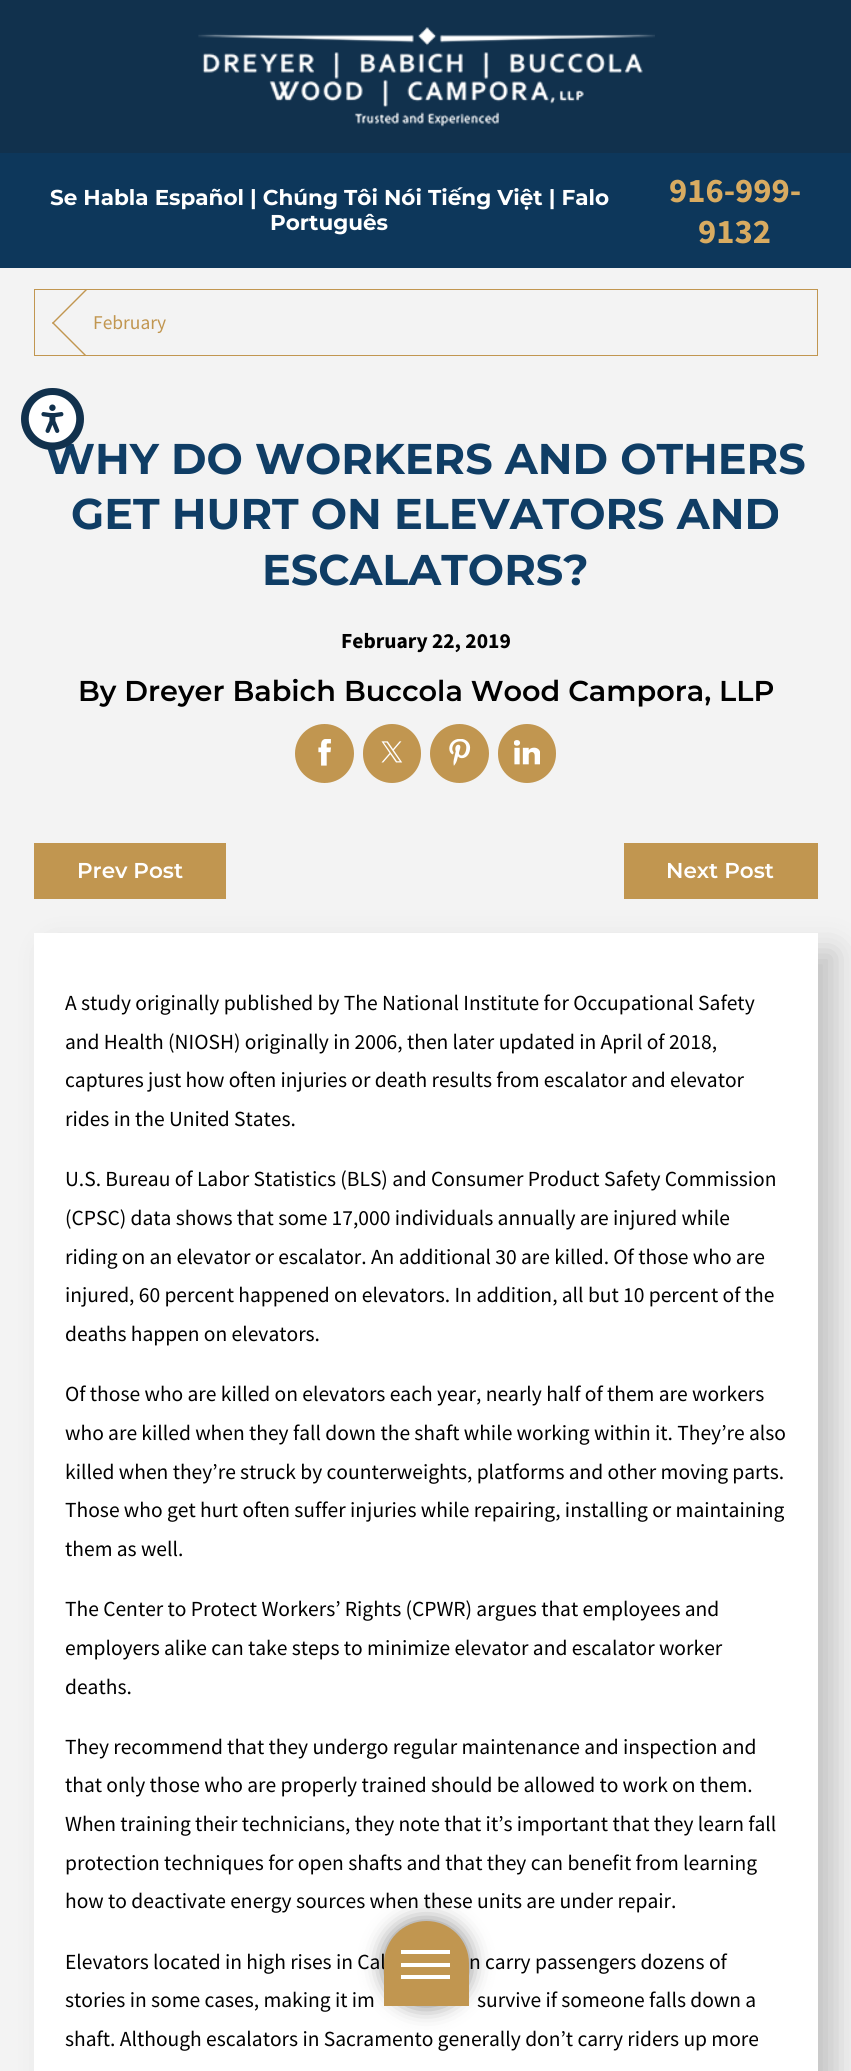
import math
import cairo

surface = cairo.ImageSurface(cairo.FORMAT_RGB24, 851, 2071)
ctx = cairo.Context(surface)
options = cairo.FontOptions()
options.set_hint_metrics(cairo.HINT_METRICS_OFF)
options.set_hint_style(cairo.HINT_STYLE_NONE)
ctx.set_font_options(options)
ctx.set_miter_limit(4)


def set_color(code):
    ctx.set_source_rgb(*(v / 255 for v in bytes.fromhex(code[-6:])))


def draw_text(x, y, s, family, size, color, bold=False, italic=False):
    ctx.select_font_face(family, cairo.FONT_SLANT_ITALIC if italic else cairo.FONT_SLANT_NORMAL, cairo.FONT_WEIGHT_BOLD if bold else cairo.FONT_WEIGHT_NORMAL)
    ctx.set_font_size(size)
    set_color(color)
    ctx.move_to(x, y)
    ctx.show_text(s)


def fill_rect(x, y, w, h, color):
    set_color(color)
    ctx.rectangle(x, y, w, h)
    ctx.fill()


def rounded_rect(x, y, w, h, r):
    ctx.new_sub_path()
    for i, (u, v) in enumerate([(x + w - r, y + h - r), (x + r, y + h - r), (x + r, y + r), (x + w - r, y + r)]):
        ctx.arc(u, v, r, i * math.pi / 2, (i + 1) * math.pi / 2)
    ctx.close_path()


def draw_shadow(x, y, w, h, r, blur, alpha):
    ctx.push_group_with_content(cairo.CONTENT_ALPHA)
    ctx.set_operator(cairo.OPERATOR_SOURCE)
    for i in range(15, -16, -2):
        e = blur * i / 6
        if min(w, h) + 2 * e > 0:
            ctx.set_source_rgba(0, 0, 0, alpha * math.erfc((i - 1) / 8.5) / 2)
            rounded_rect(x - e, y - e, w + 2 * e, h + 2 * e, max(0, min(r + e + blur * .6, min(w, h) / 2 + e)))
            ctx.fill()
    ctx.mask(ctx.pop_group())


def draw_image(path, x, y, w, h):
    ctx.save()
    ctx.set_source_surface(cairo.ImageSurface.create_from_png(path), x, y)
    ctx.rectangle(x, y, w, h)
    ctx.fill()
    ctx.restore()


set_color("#f3f3f3")
ctx.paint()
fill_rect(0, 0, 851, 153, "#11314d")
draw_image("assets/img1.png", 198, 27, 457, 100)
fill_rect(0, 153, 851, 115, "#0d375b")
draw_text(50, 205, "Se Habla Español | Chúng Tôi Nói Tiếng Việt | Falo", "Montserrat", 21.5, "#ffffff", bold=True)
draw_text(270, 230, "Português", "Montserrat", 21.5, "#ffffff", bold=True)
draw_text(669, 202, "916-999-", "Source Sans Pro", 34.5, "#d8ab61", bold=True)
draw_text(698, 243, "9132", "Source Sans Pro", 34.5, "#d8ab61", bold=True)
set_color("#000000")
draw_shadow(53, 951, 783, 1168, 0, 16, 0.2)
fill_rect(34, 933, 784, 1138, "#ffffff")
set_color("#000000")
draw_shadow(384, 1921, 85, 85, 42.5, 11, 0.5)
draw_text(65, 1969, "Elevators located in high rises in Cal", "Source Sans Pro", 21.5, "#000000")
set_color("#c19650")
ctx.new_path()
ctx.move_to(426.5, 1921)
ctx.curve_to(450, 1921, 469, 1940, 469, 1963.5)
ctx.line_to(469, 2006)
ctx.line_to(384, 2006)
ctx.line_to(384, 1963.5)
ctx.curve_to(384, 1940, 403, 1921, 426.5, 1921)
ctx.close_path()
ctx.fill()
fill_rect(401, 1950, 49, 4, "#ffffff")
fill_rect(401, 1963, 49, 4, "#ffffff")
fill_rect(401, 1975, 49, 4, "#ffffff")
draw_text(45, 474, "WHY DO WORKERS AND OTHERS", "Montserrat", 43, "#0f3d65", bold=True)
set_color("#11314d")
rounded_rect(21, 388, 63, 62, 31)
ctx.fill()
draw_image("assets/img2.png", 28, 395, 49, 48)
ctx.rectangle(34.5, 289.5, 783, 66)
set_color("#c19650")
ctx.set_line_width(1)
ctx.stroke()
ctx.save()
ctx.rectangle(35, 290, 781, 65)
ctx.clip()
ctx.new_path()
ctx.move_to(128, 399)
ctx.line_to(52, 323)
ctx.line_to(53, 322)
ctx.line_to(129, 398)
ctx.close_path()
ctx.fill()
ctx.new_path()
ctx.move_to(53, 324)
ctx.line_to(52, 323)
ctx.line_to(128, 247)
ctx.line_to(129, 248)
ctx.close_path()
ctx.fill()
ctx.restore()
draw_text(93, 329, "February", "Source Sans Pro", 19.5, "#c19650")
draw_text(71, 529, "GET HURT ON ELEVATORS AND", "Montserrat", 43, "#0f3d65", bold=True)
draw_text(262, 585, "ESCALATORS?", "Montserrat", 43, "#0f3d65", bold=True)
draw_text(341, 648, "February 22, 2019", "Source Sans Pro", 21.5, "#000000", bold=True)
draw_text(78, 701, "By Dreyer Babich Buccola Wood Campora, LLP", "Montserrat SemiBold", 28.7, "#000000")
set_color("#c19650")
ctx.new_path()
ctx.arc(324.5, 753.5, 29.5, 0, 2 * math.pi)
ctx.fill()
draw_image("assets/img3.png", 318, 739, 13, 27)
rounded_rect(363, 724, 58, 59, 29)
ctx.fill()
draw_image("assets/img4.png", 381, 741, 22, 22)
ctx.arc(459.5, 753.5, 29.5, 0, 2 * math.pi)
ctx.fill()
draw_image("assets/img5.png", 449, 739, 22, 27)
rounded_rect(498, 724, 58, 59, 29)
ctx.fill()
draw_image("assets/img6.png", 514, 740, 26, 25)
fill_rect(34, 843, 192, 56, "#c19650")
draw_text(77, 878, "Prev Post", "Montserrat SemiBold", 21.5, "#ffffff")
fill_rect(624, 843, 194, 56, "#c19650")
draw_text(666, 878, "Next Post", "Montserrat SemiBold", 21.5, "#ffffff")
draw_text(65, 1010, "A study originally published by The National Institute for Occupational Safety", "Source Sans Pro", 21.5, "#000000")
draw_text(65, 1049, "and Health (NIOSH) originally in 2006, then later updated in April of 2018,", "Source Sans Pro", 21.5, "#000000")
draw_text(65, 1087, "captures just how often injuries or death results from escalator and elevator", "Source Sans Pro", 21.5, "#000000")
draw_text(65, 1126, "rides in the United States.", "Source Sans Pro", 21.5, "#000000")
draw_text(65, 1186, "U.S. Bureau of Labor Statistics (BLS) and Consumer Product Safety Commission", "Source Sans Pro", 21.5, "#000000")
draw_text(65, 1225, "(CPSC) data shows that some 17,000 individuals annually are injured while", "Source Sans Pro", 21.5, "#000000")
draw_text(65, 1264, "riding on an elevator or escalator. An additional 30 are killed. Of those who are", "Source Sans Pro", 21.5, "#000000")
draw_text(65, 1302, "injured, 60 percent happened on elevators. In addition, all but 10 percent of the", "Source Sans Pro", 21.5, "#000000")
draw_text(65, 1341, "deaths happen on elevators.", "Source Sans Pro", 21.5, "#000000")
draw_text(65, 1401, "Of those who are killed on elevators each year, nearly half of them are workers", "Source Sans Pro", 21.5, "#000000")
draw_text(65, 1440, "who are killed when they fall down the shaft while working within it. They’re also", "Source Sans Pro", 21.5, "#000000")
draw_text(65, 1479, "killed when they’re struck by counterweights, platforms and other moving parts.", "Source Sans Pro", 21.5, "#000000")
draw_text(65, 1517, "Those who get hurt often suffer injuries while repairing, installing or maintaining", "Source Sans Pro", 21.5, "#000000")
draw_text(65, 1556, "them as well.", "Source Sans Pro", 21.5, "#000000")
draw_text(65, 1616, "The Center to Protect Workers’ Rights (CPWR) argues that employees and", "Source Sans Pro", 21.5, "#000000")
draw_text(65, 1655, "employers alike can take steps to minimize elevator and escalator worker", "Source Sans Pro", 21.5, "#000000")
draw_text(65, 1694, "deaths.", "Source Sans Pro", 21.5, "#000000")
draw_text(65, 1754, "They recommend that they undergo regular maintenance and inspection and", "Source Sans Pro", 21.5, "#000000")
draw_text(65, 1792, "that only those who are properly trained should be allowed to work on them.", "Source Sans Pro", 21.5, "#000000")
draw_text(65, 1831, "When training their technicians, they note that it’s important that they learn fall", "Source Sans Pro", 21.5, "#000000")
draw_text(65, 1870, "protection techniques for open shafts and that they can benefit from learning", "Source Sans Pro", 21.5, "#000000")
draw_text(65, 1908, "how to deactivate energy sources when these units are under repair.", "Source Sans Pro", 21.5, "#000000")
draw_text(469, 1969, "n carry passengers dozens of", "Source Sans Pro", 21.5, "#000000")
draw_text(65, 2007, "stories in some cases, making it im", "Source Sans Pro", 21.5, "#000000")
draw_text(477, 2007, "survive if someone falls down a", "Source Sans Pro", 21.5, "#000000")
draw_text(65, 2046, "shaft. Although escalators in Sacramento generally don’t carry riders up more", "Source Sans Pro", 21.5, "#000000")
surface.write_to_png("output.png")
